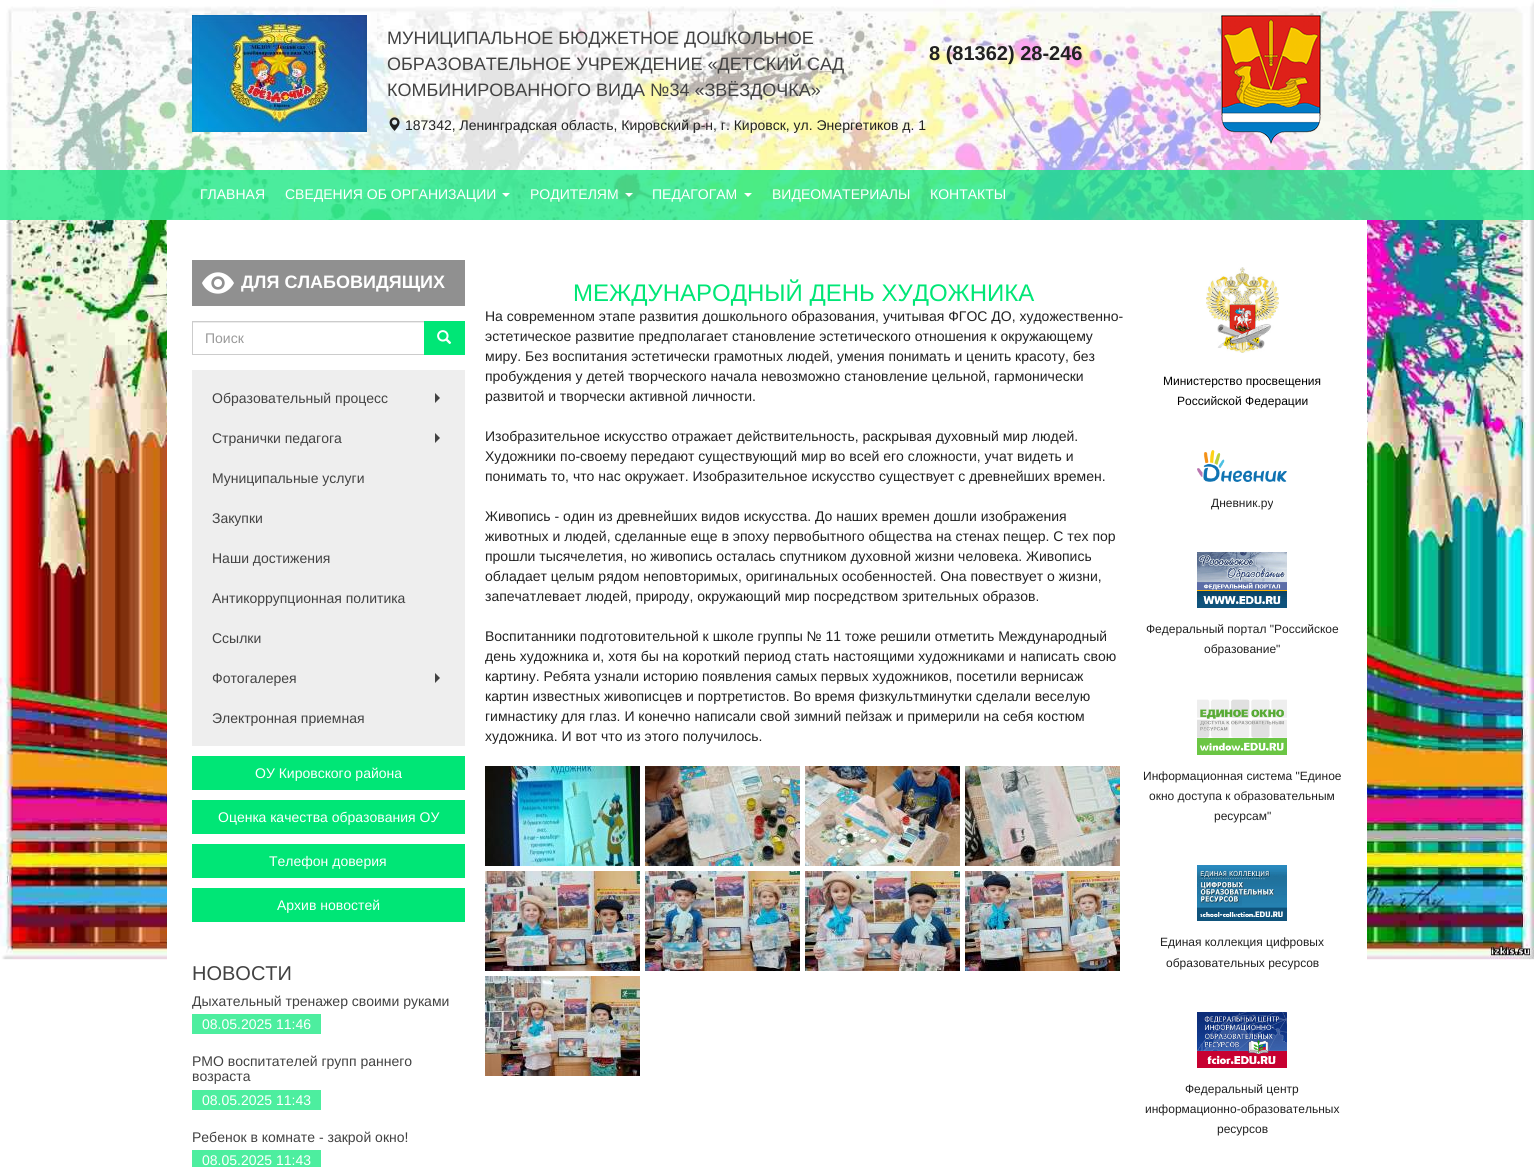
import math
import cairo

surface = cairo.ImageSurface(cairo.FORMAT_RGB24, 1534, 1167)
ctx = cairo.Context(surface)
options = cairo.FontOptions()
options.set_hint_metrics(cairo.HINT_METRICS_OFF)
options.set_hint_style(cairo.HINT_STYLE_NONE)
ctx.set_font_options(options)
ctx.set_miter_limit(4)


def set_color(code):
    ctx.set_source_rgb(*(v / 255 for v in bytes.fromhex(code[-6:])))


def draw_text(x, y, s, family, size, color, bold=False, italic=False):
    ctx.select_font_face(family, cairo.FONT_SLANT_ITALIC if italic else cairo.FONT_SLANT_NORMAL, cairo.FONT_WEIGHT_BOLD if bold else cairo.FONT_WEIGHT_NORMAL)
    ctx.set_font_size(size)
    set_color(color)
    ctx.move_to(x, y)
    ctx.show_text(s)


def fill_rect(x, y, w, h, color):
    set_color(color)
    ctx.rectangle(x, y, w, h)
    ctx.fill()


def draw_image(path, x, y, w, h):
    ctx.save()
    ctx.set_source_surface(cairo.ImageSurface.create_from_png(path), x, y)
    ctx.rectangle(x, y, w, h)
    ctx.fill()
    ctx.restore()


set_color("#ffffff")
ctx.paint()
draw_image("assets/img1.png", 0, 0, 1534, 960)
ctx.set_source_rgba(1, 1, 1, 0.65)
ctx.rectangle(6, 0, 1528, 220)
ctx.fill()
draw_image("assets/img2.png", 192, 15, 175, 117)
draw_text(387, 44, "МУНИЦИПАЛЬНОЕ БЮДЖЕТНОЕ ДОШКОЛЬНОЕ", "Liberation Sans", 18, "#424242")
draw_text(387, 70, "ОБРАЗОВАТЕЛЬНОЕ УЧРЕЖДЕНИЕ «ДЕТСКИЙ САД", "Liberation Sans", 18, "#424242")
draw_text(387, 96, "КОМБИНИРОВАННОГО ВИДА №34 «ЗВЁЗДОЧКА»", "Liberation Sans", 18, "#424242")
draw_text(929, 60, "8 (81362) 28-246", "Liberation Sans", 20, "#212121", bold=True)
draw_image("assets/img3.png", 389, 117, 11, 14)
draw_text(405, 130, "187342, Ленинградская область, Кировский р-н, г. Кировск, ул. Энергетиков д. 1", "Liberation Sans", 14, "#212121")
draw_image("assets/img4.png", 1221, 15, 100, 130)
ctx.set_source_rgba(0, 0.902, 0.463, 0.7)
ctx.rectangle(0, 170, 1534, 50)
ctx.fill()
draw_text(200, 199, "ГЛАВНАЯ", "Liberation Sans", 14, "#ffffff")
draw_text(285, 199, "СВЕДЕНИЯ ОБ ОРГАНИЗАЦИИ", "Liberation Sans", 14, "#ffffff")
ctx.new_path()
ctx.move_to(502, 193)
ctx.line_to(510, 193)
ctx.line_to(506, 197)
ctx.close_path()
ctx.fill()
draw_text(530, 199, "РОДИТЕЛЯМ", "Liberation Sans", 14, "#ffffff")
ctx.new_path()
ctx.move_to(625, 193)
ctx.line_to(633, 193)
ctx.line_to(629, 197)
ctx.close_path()
ctx.fill()
draw_text(652, 199, "ПЕДАГОГАМ", "Liberation Sans", 14, "#ffffff")
ctx.new_path()
ctx.move_to(744, 193)
ctx.line_to(752, 193)
ctx.line_to(748, 197)
ctx.close_path()
ctx.fill()
draw_text(772, 199, "ВИДЕОМАТЕРИАЛЫ", "Liberation Sans", 14, "#ffffff")
draw_text(930, 199, "КОНТАКТЫ", "Liberation Sans", 14, "#ffffff")
fill_rect(167, 220, 1200, 740, "#ffffff")
fill_rect(192, 260, 273, 46, "#909090")
draw_image("assets/img5.png", 202, 272, 32, 22)
draw_text(241, 288, "ДЛЯ СЛАБОВИДЯЩИХ", "Liberation Sans", 18, "#ffffff", bold=True)
fill_rect(193, 322, 231, 1, "#ececec")
ctx.rectangle(192.5, 321.5, 232, 33)
set_color("#cccccc")
ctx.set_line_width(1)
ctx.stroke()
draw_text(205, 343, "Поиск", "Liberation Sans", 14, "#999999")
fill_rect(424, 321, 41, 34, "#00e676")
draw_image("assets/img6.png", 437, 330, 15, 14)
fill_rect(192, 370, 273, 376, "#eeeeee")
draw_text(212, 403, "Образовательный процесс", "Liberation Sans", 14, "#424242")
ctx.new_path()
ctx.move_to(435, 403)
ctx.line_to(435, 393)
ctx.line_to(440, 398)
ctx.close_path()
ctx.fill()
draw_text(212, 443, "Странички педагога", "Liberation Sans", 14, "#424242")
ctx.new_path()
ctx.move_to(435, 443)
ctx.line_to(435, 433)
ctx.line_to(440, 438)
ctx.close_path()
ctx.fill()
draw_text(212, 483, "Муниципальные услуги", "Liberation Sans", 14, "#424242")
draw_text(212, 523, "Закупки", "Liberation Sans", 14, "#424242")
draw_text(212, 563, "Наши достижения", "Liberation Sans", 14, "#424242")
draw_text(212, 603, "Антикоррупционная политика", "Liberation Sans", 14, "#424242")
draw_text(212, 643, "Ссылки", "Liberation Sans", 14, "#424242")
draw_text(212, 683, "Фотогалерея", "Liberation Sans", 14, "#424242")
ctx.new_path()
ctx.move_to(435, 683)
ctx.line_to(435, 673)
ctx.line_to(440, 678)
ctx.close_path()
ctx.fill()
draw_text(212, 723, "Электронная приемная", "Liberation Sans", 14, "#424242")
fill_rect(192, 756, 273, 34, "#00e676")
draw_text(255, 778, "ОУ Кировского района", "Liberation Sans", 14, "#ffffff")
fill_rect(192, 800, 273, 34, "#00e676")
draw_text(218, 822, "Оценка качества образования ОУ", "Liberation Sans", 14, "#ffffff")
fill_rect(192, 844, 273, 34, "#00e676")
draw_text(269, 866, "Телефон доверия", "Liberation Sans", 14, "#ffffff")
fill_rect(192, 888, 273, 34, "#00e676")
draw_text(277, 910, "Архив новостей", "Liberation Sans", 14, "#ffffff")
draw_text(192, 980, "НОВОСТИ", "Liberation Sans", 20, "#424242")
draw_text(192, 1006, "Дыхательный тренажер своими руками", "Liberation Sans", 14, "#424242")
fill_rect(192, 1014, 129, 20, "#4dee9f")
draw_text(202, 1029, "08.05.2025 11:46", "Liberation Sans", 14, "#ffffff")
draw_text(192, 1066, "РМО воспитателей групп раннего", "Liberation Sans", 14, "#424242")
draw_text(192, 1081, "возраста", "Liberation Sans", 14, "#424242")
fill_rect(192, 1090, 129, 20, "#4dee9f")
draw_text(202, 1105, "08.05.2025 11:43", "Liberation Sans", 14, "#ffffff")
draw_text(192, 1142, "Ребенок в комнате - закрой окно!", "Liberation Sans", 14, "#424242")
fill_rect(192, 1150, 129, 17, "#4dee9f")
draw_text(202, 1165, "08.05.2025 11:43", "Liberation Sans", 14, "#ffffff")
draw_text(573, 301, "МЕЖДУНАРОДНЫЙ ДЕНЬ ХУДОЖНИКА", "Liberation Sans", 24, "#00e676")
draw_text(485, 321, "На современном этапе развития дошкольного образования, учитывая ФГОС ДО, художественно-", "Liberation Sans", 14, "#212121")
draw_text(485, 341, "эстетическое развитие предполагает становление эстетического отношения к окружающему", "Liberation Sans", 14, "#212121")
draw_text(485, 361, "миру. Без воспитания эстетически грамотных людей, умения понимать и ценить красоту, без", "Liberation Sans", 14, "#212121")
draw_text(485, 381, "пробуждения у детей творческого начала невозможно становление цельной, гармонически", "Liberation Sans", 14, "#212121")
draw_text(485, 401, "развитой и творчески активной личности.", "Liberation Sans", 14, "#212121")
draw_text(485, 441, "Изобразительное искусство отражает действительность, раскрывая духовный мир людей.", "Liberation Sans", 14, "#212121")
draw_text(485, 461, "Художники по-своему передают существующий мир во всей его сложности, учат видеть и", "Liberation Sans", 14, "#212121")
draw_text(485, 481, "понимать то, что нас окружает. Изобразительное искусство существует с древнейших времен.", "Liberation Sans", 14, "#212121")
draw_text(485, 521, "Живопись - один из древнейших видов искусства. До наших времен дошли изображения", "Liberation Sans", 14, "#212121")
draw_text(485, 541, "животных и людей, сделанные еще в эпоху первобытного общества на стенах пещер. С тех пор", "Liberation Sans", 14, "#212121")
draw_text(485, 561, "прошли тысячелетия, но живопись осталась спутником духовной жизни человека. Живопись", "Liberation Sans", 14, "#212121")
draw_text(485, 581, "обладает целым рядом неповторимых, оригинальных особенностей. Она повествует о жизни,", "Liberation Sans", 14, "#212121")
draw_text(485, 601, "запечатлевает людей, природу, окружающий мир посредством зрительных образов.", "Liberation Sans", 14, "#212121")
draw_text(485, 641, "Воспитанники подготовительной к школе группы № 11 тоже решили отметить Международный", "Liberation Sans", 14, "#212121")
draw_text(485, 661, "день художника и, хотя бы на короткий период стать настоящими художниками и написать свою", "Liberation Sans", 14, "#212121")
draw_text(485, 681, "картину. Ребята узнали историю появления самых первых художников, посетили вернисаж", "Liberation Sans", 14, "#212121")
draw_text(485, 701, "картин известных живописцев и портретистов. Во время физкультминутки сделали веселую", "Liberation Sans", 14, "#212121")
draw_text(485, 721, "гимнастику для глаз. И конечно написали свой зимний пейзаж и примерили на себя костюм", "Liberation Sans", 14, "#212121")
draw_text(485, 741, "художника. И вот что из этого получилось.", "Liberation Sans", 14, "#212121")
draw_image("assets/img7.png", 485, 766, 155, 100)
draw_image("assets/img8.png", 645, 766, 155, 100)
draw_image("assets/img9.png", 805, 766, 155, 100)
draw_image("assets/img10.png", 965, 766, 155, 100)
draw_image("assets/img11.png", 485, 871, 155, 100)
draw_image("assets/img12.png", 645, 871, 155, 100)
draw_image("assets/img13.png", 805, 871, 155, 100)
draw_image("assets/img14.png", 965, 871, 155, 100)
draw_image("assets/img15.png", 485, 976, 155, 100)
draw_image("assets/img16.png", 1206, 267, 73, 86)
draw_text(1163, 385, "Министерство просвещения", "Liberation Sans", 12, "#000000")
draw_text(1177, 405, "Российской Федерации", "Liberation Sans", 12, "#000000")
draw_image("assets/img17.png", 1197, 450, 90, 32)
draw_text(1211, 507, "Дневник.ру", "Liberation Sans", 12, "#212121")
draw_image("assets/img18.png", 1197, 552, 90, 56)
draw_text(1146, 633, "Федеральный портал \"Российское", "Liberation Sans", 12, "#212121")
draw_text(1204, 653, "образование\"", "Liberation Sans", 12, "#212121")
draw_image("assets/img19.png", 1197, 699, 90, 56)
draw_text(1143, 780, "Информационная система \"Единое", "Liberation Sans", 12, "#212121")
draw_text(1149, 800, "окно доступа к образовательным", "Liberation Sans", 12, "#212121")
draw_text(1214, 820, "ресурсам\"", "Liberation Sans", 12, "#212121")
draw_image("assets/img20.png", 1197, 865, 90, 56)
draw_text(1160, 946, "Единая коллекция цифровых", "Liberation Sans", 12, "#212121")
draw_text(1166, 967, "образовательных ресурсов", "Liberation Sans", 12, "#212121")
draw_image("assets/img21.png", 1197, 1012, 90, 56)
draw_text(1185, 1093, "Федеральный центр", "Liberation Sans", 12, "#212121")
draw_text(1145, 1113, "информационно-образовательных", "Liberation Sans", 12, "#212121")
draw_text(1217, 1133, "ресурсов", "Liberation Sans", 12, "#212121")
surface.write_to_png("output.png")
